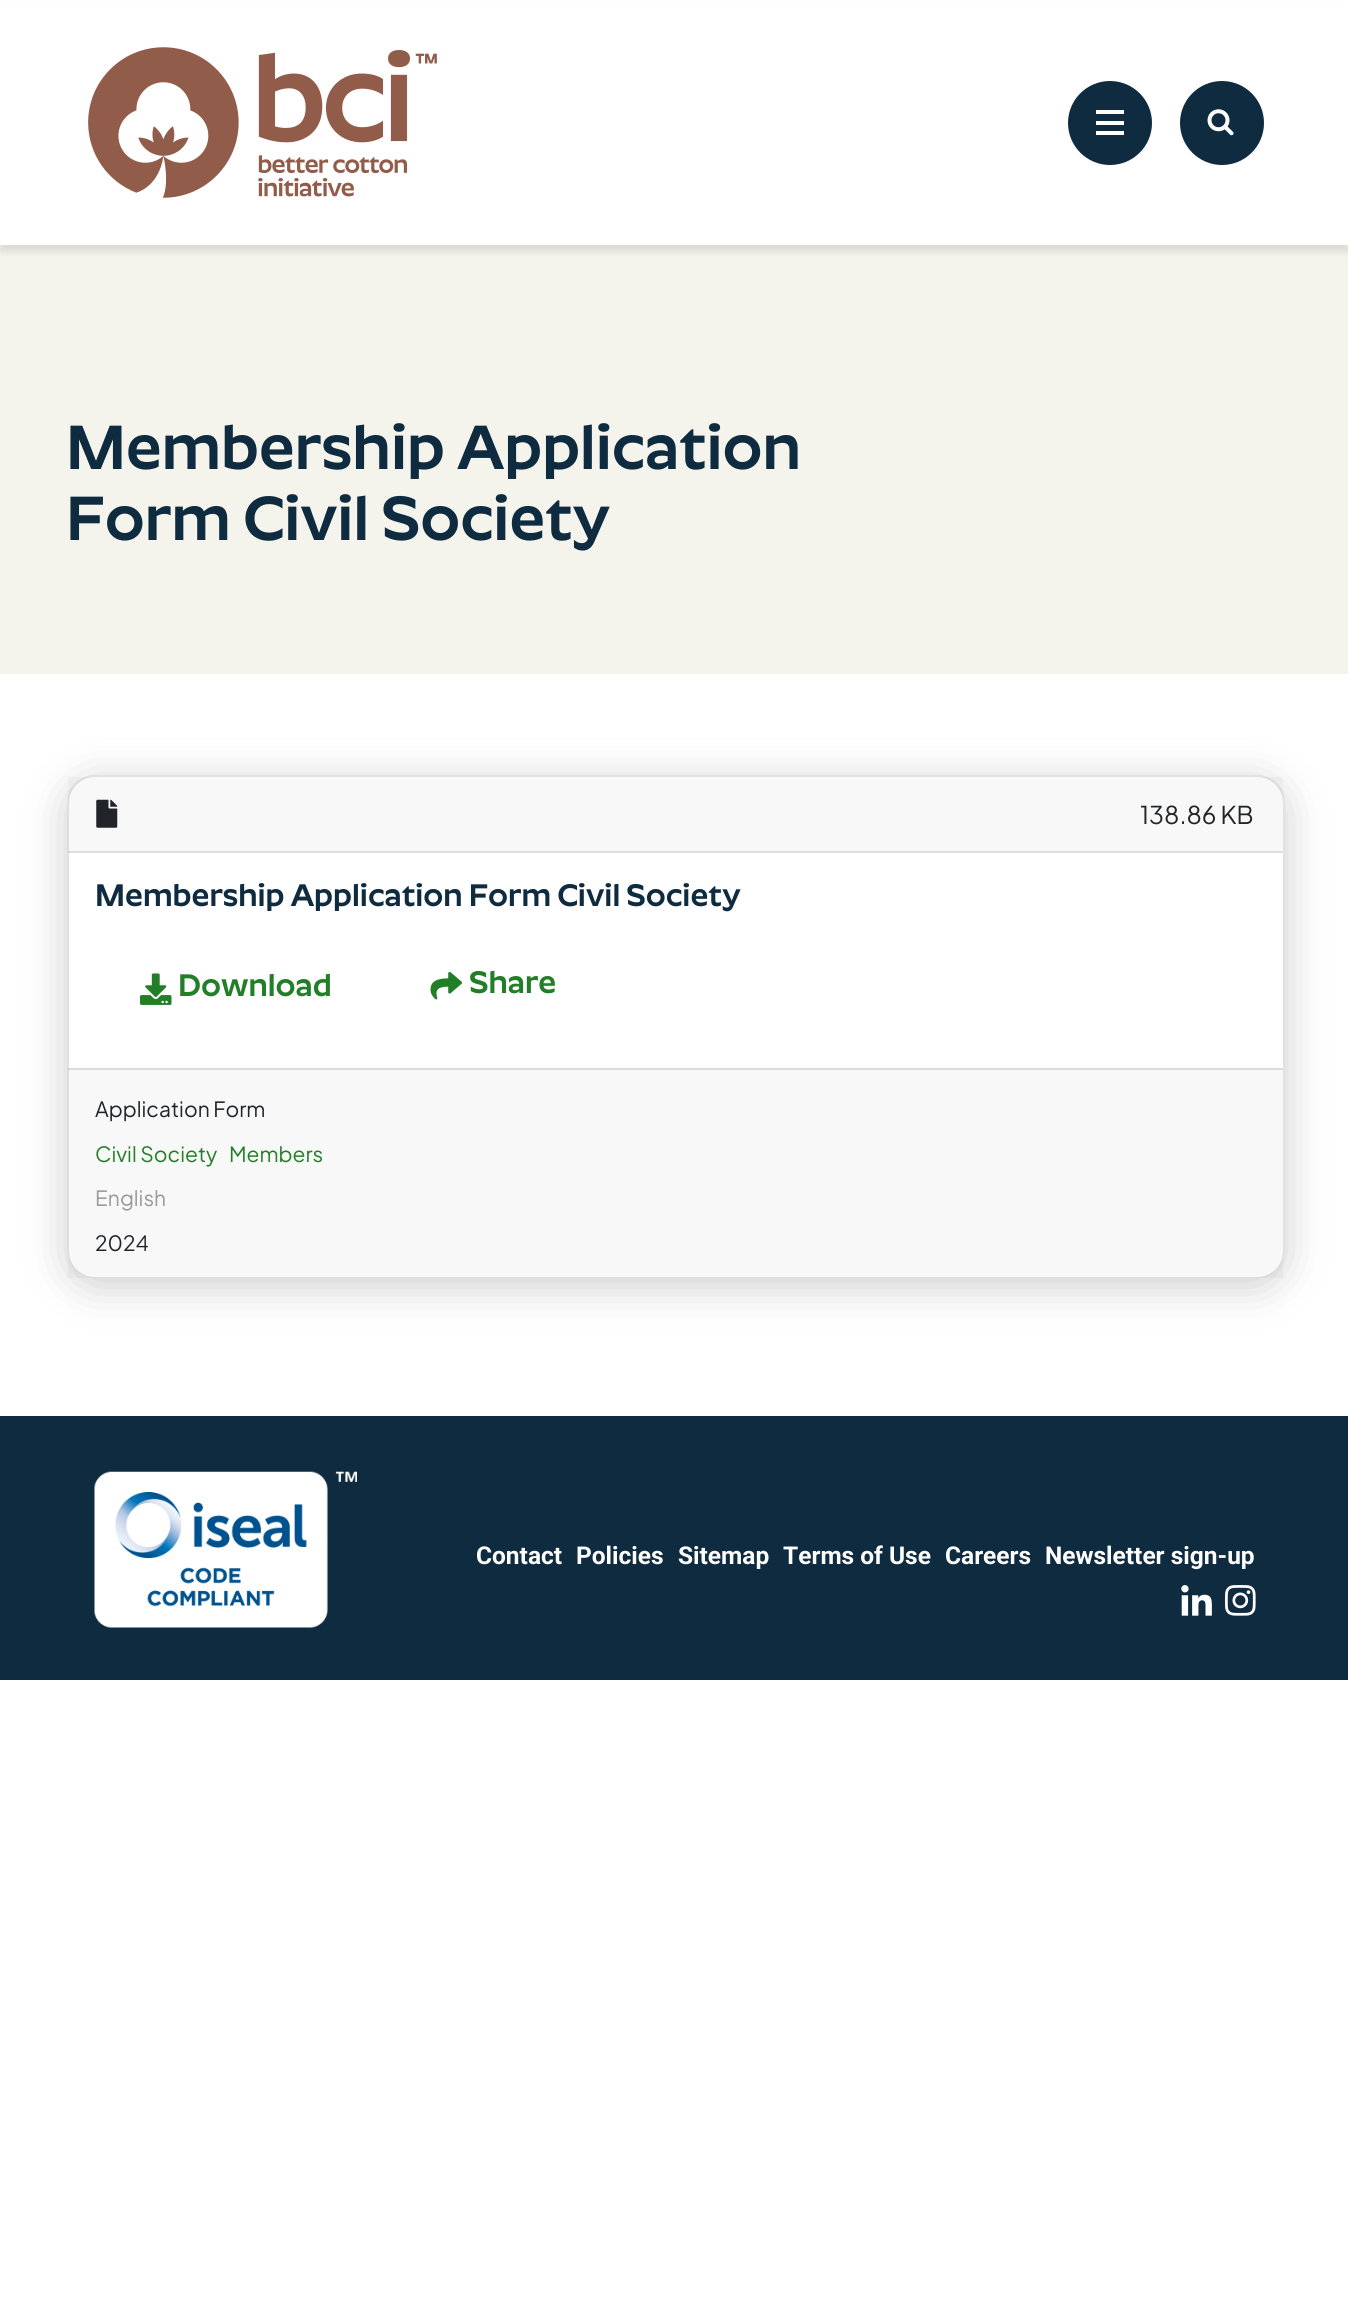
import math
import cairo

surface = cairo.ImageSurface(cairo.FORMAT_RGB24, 1348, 2317)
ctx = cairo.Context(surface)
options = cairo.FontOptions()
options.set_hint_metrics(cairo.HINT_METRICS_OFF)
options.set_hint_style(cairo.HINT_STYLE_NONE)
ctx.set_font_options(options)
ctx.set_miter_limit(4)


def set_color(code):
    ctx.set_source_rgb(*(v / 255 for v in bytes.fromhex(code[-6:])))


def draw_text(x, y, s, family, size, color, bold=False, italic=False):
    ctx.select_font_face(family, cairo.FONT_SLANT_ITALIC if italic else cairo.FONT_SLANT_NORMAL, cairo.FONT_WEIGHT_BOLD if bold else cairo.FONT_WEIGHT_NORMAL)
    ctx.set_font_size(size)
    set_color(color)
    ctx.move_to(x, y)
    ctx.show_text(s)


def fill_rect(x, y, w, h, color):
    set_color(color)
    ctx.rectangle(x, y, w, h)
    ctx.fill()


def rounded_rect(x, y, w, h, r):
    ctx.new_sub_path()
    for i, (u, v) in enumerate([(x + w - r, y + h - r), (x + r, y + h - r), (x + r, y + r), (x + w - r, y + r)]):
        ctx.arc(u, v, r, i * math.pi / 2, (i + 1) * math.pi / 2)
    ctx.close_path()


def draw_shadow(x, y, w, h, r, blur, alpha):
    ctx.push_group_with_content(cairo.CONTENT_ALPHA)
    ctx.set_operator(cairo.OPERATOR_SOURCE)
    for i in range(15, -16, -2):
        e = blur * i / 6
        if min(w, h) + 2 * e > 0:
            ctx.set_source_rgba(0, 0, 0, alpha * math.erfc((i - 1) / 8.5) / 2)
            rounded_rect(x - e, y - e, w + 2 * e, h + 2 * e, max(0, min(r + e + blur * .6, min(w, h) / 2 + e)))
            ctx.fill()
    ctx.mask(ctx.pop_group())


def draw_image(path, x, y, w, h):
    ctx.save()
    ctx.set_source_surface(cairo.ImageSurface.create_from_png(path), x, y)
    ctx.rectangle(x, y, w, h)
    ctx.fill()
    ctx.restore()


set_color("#ffffff")
ctx.paint()
fill_rect(0, 245, 1348, 429, "#f4f3ec")
set_color("#000000")
draw_shadow(0, 7, 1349, 245, 0, 3.5, 0.1)
fill_rect(0, 3, 1348, 242, "#ffffff")
draw_image("assets/img1.png", 88, 47, 349, 151)
set_color("#0f2b40")
ctx.arc(1110, 123, 42, 0, 2 * math.pi)
ctx.fill()
fill_rect(1096, 121, 28, 4, "#ffffff")
fill_rect(1096, 110, 28, 4, "#ffffff")
fill_rect(1096, 131, 28, 4, "#ffffff")
set_color("#0f2b40")
ctx.arc(1222, 123, 42, 0, 2 * math.pi)
ctx.fill()
draw_image("assets/img2.png", 1207, 109, 27, 27)
draw_text(66, 469, "Membership Application", "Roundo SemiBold", 63, "#0f2b40")
draw_text(66, 540, "Form Civil Society", "Roundo SemiBold", 63, "#0f2b40")
set_color("#000000")
draw_shadow(67, 782, 1218, 504, 28, 21, 0.2)
set_color("#ffffff")
rounded_rect(67, 775, 1218, 504, 28)
ctx.fill()
rounded_rect(68, 776, 1216, 502, 27)
ctx.set_source_rgba(0, 0, 0, 0.12)
ctx.stroke()
ctx.set_source_rgba(0, 0, 0, 0.03)
ctx.rectangle(68, 777, 1215, 75)
ctx.fill()
ctx.set_source_rgba(0, 0, 0, 0.12)
ctx.rectangle(68, 851, 1215, 2)
ctx.fill()
draw_image("assets/img3.png", 96, 799, 22, 29)
draw_text(1140, 824, "138.86 KB", "Plus Jakarta Sans", 24.5, "#212529")
draw_text(95, 906, "Membership Application Form Civil Society", "Roundo SemiBold", 31.5, "#0f2b40")
draw_image("assets/img4.png", 140, 973, 32, 32)
draw_text(178, 996, "Download", "Roundo SemiBold", 31.5, "#237e28")
draw_image("assets/img5.png", 430, 971, 32, 29)
draw_text(469, 993, "Share", "Roundo SemiBold", 31.5, "#237e28")
ctx.set_source_rgba(0, 0, 0, 0.03)
ctx.rectangle(68, 1068, 1215, 210)
ctx.fill()
ctx.set_source_rgba(0, 0, 0, 0.12)
ctx.rectangle(68, 1068, 1215, 2)
ctx.fill()
draw_text(95, 1117, "Application Form", "Plus Jakarta Sans", 21, "#212529")
draw_text(95, 1162, "Civil Society", "Plus Jakarta Sans", 21, "#237e28")
draw_text(229, 1162, "Members", "Plus Jakarta Sans", 21, "#237e28")
draw_text(95, 1206, "English", "Plus Jakarta Sans", 21, "#999999")
draw_text(95, 1251, "2024", "Plus Jakarta Sans", 21, "#212529")
fill_rect(0, 1416, 1348, 264, "#0f2b40")
draw_image("assets/img6.png", 94, 1471, 263, 157)
draw_text(476, 1564, "Contact", "Roboto", 24.5, "#ffffff", bold=True)
draw_text(576, 1564, "Policies", "Roboto", 24.5, "#ffffff", bold=True)
draw_text(678, 1564, "Sitemap", "Roboto", 24.5, "#ffffff", bold=True)
draw_text(783, 1564, "Terms of Use", "Roboto", 24.5, "#ffffff", bold=True)
draw_text(945, 1564, "Careers", "Roboto", 24.5, "#ffffff", bold=True)
draw_text(1045, 1564, "Newsletter sign-up", "Roboto", 24.5, "#ffffff", bold=True)
draw_image("assets/img7.png", 1181, 1585, 31, 31)
draw_image("assets/img8.png", 1225, 1585, 31, 31)
surface.write_to_png("output.png")
